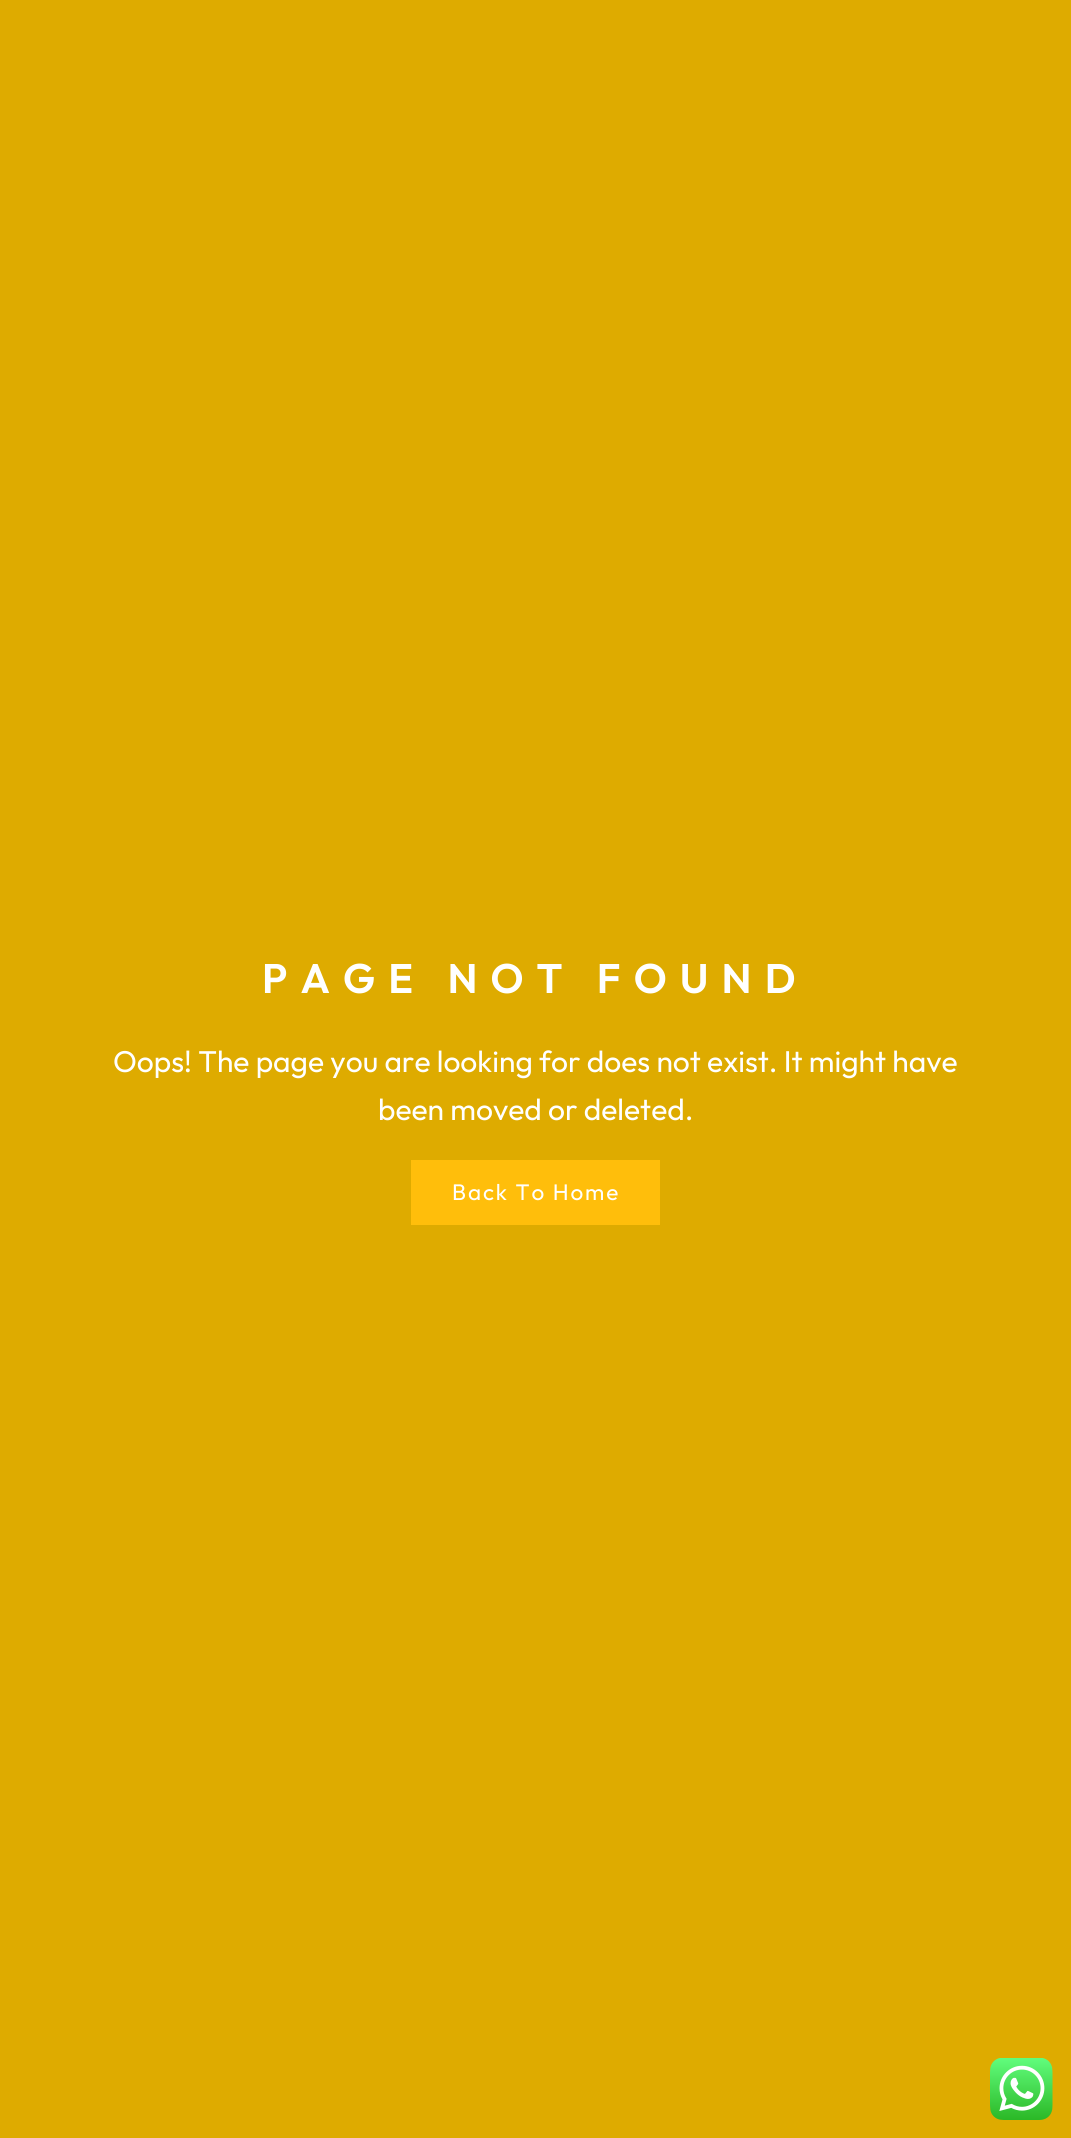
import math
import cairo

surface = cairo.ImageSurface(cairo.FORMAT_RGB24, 1071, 2138)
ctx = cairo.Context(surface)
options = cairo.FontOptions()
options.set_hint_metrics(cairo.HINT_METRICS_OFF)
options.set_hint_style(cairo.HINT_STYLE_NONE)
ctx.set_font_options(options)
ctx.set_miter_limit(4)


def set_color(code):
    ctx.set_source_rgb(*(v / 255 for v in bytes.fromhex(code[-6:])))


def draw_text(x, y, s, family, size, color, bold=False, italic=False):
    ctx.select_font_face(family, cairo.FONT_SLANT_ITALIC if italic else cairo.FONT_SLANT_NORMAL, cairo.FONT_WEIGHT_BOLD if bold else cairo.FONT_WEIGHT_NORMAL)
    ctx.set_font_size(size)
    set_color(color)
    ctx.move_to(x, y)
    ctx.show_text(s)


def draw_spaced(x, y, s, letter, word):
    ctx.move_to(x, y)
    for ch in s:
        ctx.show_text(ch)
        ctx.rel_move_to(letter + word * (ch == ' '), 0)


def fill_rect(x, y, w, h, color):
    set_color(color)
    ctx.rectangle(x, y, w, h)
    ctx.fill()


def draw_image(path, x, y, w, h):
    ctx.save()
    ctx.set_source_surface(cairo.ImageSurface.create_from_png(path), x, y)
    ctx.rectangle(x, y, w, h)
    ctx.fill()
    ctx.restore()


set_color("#deab00")
ctx.paint()
ctx.select_font_face("Outfit SemiBold")
ctx.set_font_size(41.25)
set_color("#ffffff")
draw_spaced(262, 993, "PAGE NOT FOUND", 13.1, 0)
draw_text(113, 1072, "Oops! The page you are looking for does not exist. It might have", "Outfit", 30, "#ffffff")
draw_text(378, 1120, "been moved or deleted.", "Outfit", 30, "#ffffff")
fill_rect(411, 1160, 249, 65, "#ffbe0b")
ctx.set_font_size(22.5)
set_color("#ffffff")
draw_spaced(452, 1200, "Back To Home", 1.9, 0)
draw_image("assets/img1.png", 990, 2058, 63, 62)
surface.write_to_png("output.png")
